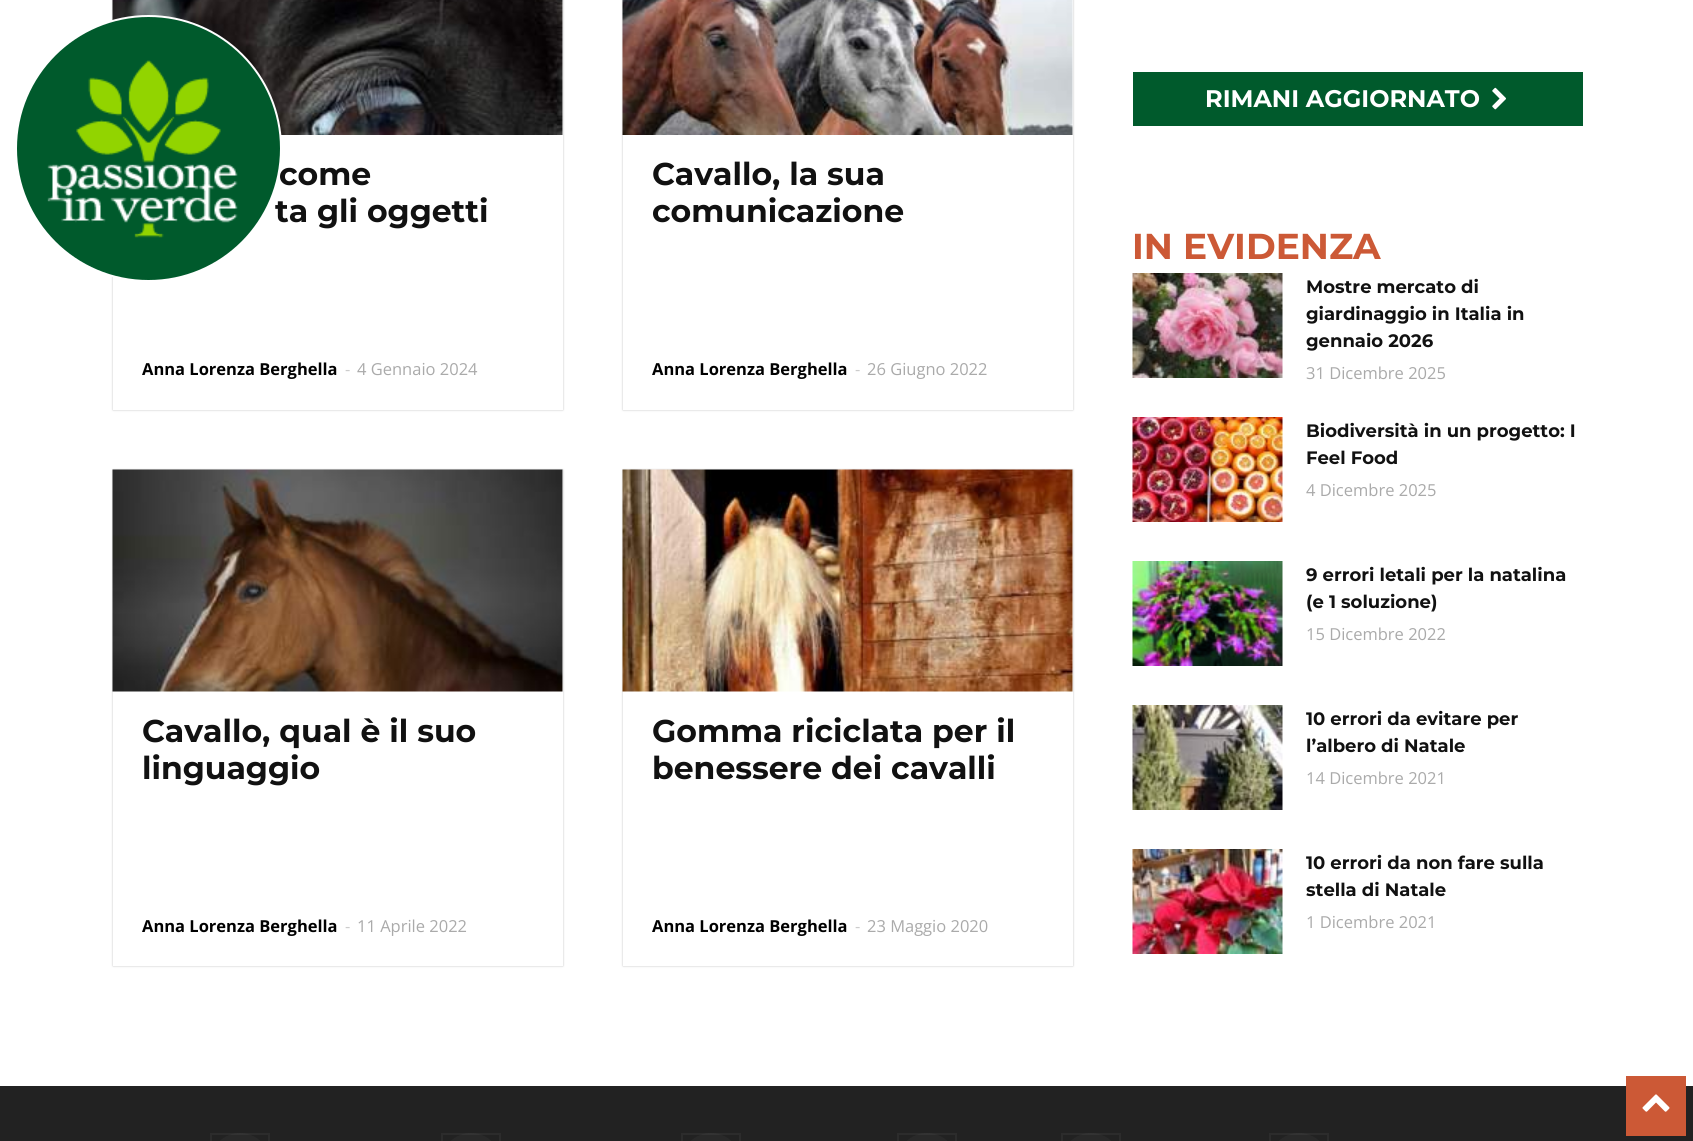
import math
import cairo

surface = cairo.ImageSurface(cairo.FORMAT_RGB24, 1693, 1141)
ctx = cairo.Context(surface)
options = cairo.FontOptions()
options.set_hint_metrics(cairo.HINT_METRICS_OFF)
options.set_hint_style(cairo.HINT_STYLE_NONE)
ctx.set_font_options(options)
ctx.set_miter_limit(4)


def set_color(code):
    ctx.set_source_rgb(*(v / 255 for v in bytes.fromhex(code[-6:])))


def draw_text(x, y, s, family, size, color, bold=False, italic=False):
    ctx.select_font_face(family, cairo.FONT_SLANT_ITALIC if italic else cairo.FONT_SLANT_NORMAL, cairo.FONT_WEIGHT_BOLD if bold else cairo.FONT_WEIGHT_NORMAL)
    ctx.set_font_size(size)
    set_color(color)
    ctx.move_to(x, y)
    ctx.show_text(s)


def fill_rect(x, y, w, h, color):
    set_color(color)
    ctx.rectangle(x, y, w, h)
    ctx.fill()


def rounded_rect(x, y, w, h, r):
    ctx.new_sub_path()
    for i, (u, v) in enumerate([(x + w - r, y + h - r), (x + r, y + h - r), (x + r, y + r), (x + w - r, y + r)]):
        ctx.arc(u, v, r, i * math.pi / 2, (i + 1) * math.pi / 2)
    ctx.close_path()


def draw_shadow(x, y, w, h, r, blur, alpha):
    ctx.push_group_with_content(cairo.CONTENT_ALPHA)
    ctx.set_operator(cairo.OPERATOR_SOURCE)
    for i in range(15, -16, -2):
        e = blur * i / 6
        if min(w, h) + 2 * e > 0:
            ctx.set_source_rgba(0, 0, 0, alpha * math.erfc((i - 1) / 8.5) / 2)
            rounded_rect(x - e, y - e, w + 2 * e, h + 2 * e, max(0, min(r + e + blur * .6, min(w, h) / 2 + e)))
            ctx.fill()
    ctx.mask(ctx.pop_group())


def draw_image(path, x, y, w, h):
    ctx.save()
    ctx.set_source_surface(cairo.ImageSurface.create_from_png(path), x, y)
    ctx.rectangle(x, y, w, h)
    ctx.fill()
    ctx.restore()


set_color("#ffffff")
ctx.paint()
set_color("#666666")
draw_shadow(113, -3, 450, 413, 0, 1, 0.4)
fill_rect(113, 0, 450, 410, "#ffffff")
draw_image("assets/img2.png", 112, 0, 451, 135)
draw_text(279, 185, "come", "Montserrat Thin", 31.5, "#111111")
draw_text(275, 222, "ta gli oggetti", "Montserrat Thin", 31.5, "#111111")
set_color("#005a2c")
ctx.new_path()
ctx.arc(148.5, 148.5, 132.5, 0, 2 * math.pi)
ctx.fill_preserve()
set_color("#ffffff")
ctx.stroke()
draw_image("assets/img1.png", 47, 60, 191, 178)
draw_text(142, 375, "Anna Lorenza Berghella", "Open Sans", 16.5, "#000000", bold=True)
draw_text(345, 375, "-", "Open Sans", 16.5, "#cccccc")
draw_text(357, 375, "4 Gennaio 2024", "Open Sans", 16.5, "#aaaaaa")
set_color("#666666")
draw_shadow(623, -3, 450, 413, 0, 1, 0.4)
fill_rect(623, 0, 450, 410, "#ffffff")
draw_image("assets/img3.png", 622, 0, 451, 135)
draw_text(652, 185, "Cavallo, la sua", "Montserrat Thin", 31.5, "#111111")
draw_text(652, 222, "comunicazione", "Montserrat Thin", 31.5, "#111111")
draw_text(652, 375, "Anna Lorenza Berghella", "Open Sans", 16.5, "#000000", bold=True)
draw_text(855, 375, "-", "Open Sans", 16.5, "#cccccc")
draw_text(867, 375, "26 Giugno 2022", "Open Sans", 16.5, "#aaaaaa")
set_color("#666666")
draw_shadow(113, 470, 450, 496, 0, 1, 0.4)
fill_rect(113, 470, 450, 496, "#ffffff")
draw_image("assets/img4.png", 112, 469, 451, 223)
draw_text(142, 742, "Cavallo, qual è il suo", "Montserrat Thin", 31.5, "#111111")
draw_text(142, 779, "linguaggio", "Montserrat Thin", 31.5, "#111111")
draw_text(142, 932, "Anna Lorenza Berghella", "Open Sans", 16.5, "#000000", bold=True)
draw_text(345, 932, "-", "Open Sans", 16.5, "#cccccc")
draw_text(357, 932, "11 Aprile 2022", "Open Sans", 16.5, "#aaaaaa")
set_color("#666666")
draw_shadow(623, 470, 450, 496, 0, 1, 0.4)
fill_rect(623, 470, 450, 496, "#ffffff")
draw_image("assets/img5.png", 622, 469, 451, 223)
draw_text(652, 742, "Gomma riciclata per il", "Montserrat Thin", 31.5, "#111111")
draw_text(652, 779, "benessere dei cavalli", "Montserrat Thin", 31.5, "#111111")
draw_text(652, 932, "Anna Lorenza Berghella", "Open Sans", 16.5, "#000000", bold=True)
draw_text(855, 932, "-", "Open Sans", 16.5, "#cccccc")
draw_text(867, 932, "23 Maggio 2020", "Open Sans", 16.5, "#aaaaaa")
fill_rect(1133, 72, 450, 54, "#005a2c")
draw_text(1205, 107, "RIMANI AGGIORNATO", "Montserrat Thin", 24, "#ffffff")
draw_image("assets/img6.png", 1492, 87, 14, 23)
draw_text(1132, 259, "IN EVIDENZA", "Montserrat Thin", 36, "#cc5936")
draw_image("assets/img7.png", 1132, 273, 151, 105)
draw_text(1306, 293, "Mostre mercato di", "Montserrat Thin", 18, "#111111")
draw_text(1306, 320, "giardinaggio in Italia in", "Montserrat Thin", 18, "#111111")
draw_text(1306, 347, "gennaio 2026", "Montserrat Thin", 18, "#111111")
draw_text(1306, 379, "31 Dicembre 2025", "Open Sans", 16.5, "#aaaaaa")
draw_image("assets/img8.png", 1132, 417, 151, 105)
draw_text(1306, 437, "Biodiversità in un progetto: I", "Montserrat Thin", 18, "#111111")
draw_text(1306, 464, "Feel Food", "Montserrat Thin", 18, "#111111")
draw_text(1306, 496, "4 Dicembre 2025", "Open Sans", 16.5, "#aaaaaa")
draw_image("assets/img9.png", 1132, 561, 151, 105)
draw_text(1306, 581, "9 errori letali per la natalina", "Montserrat Thin", 18, "#111111")
draw_text(1306, 608, "(e 1 soluzione)", "Montserrat Thin", 18, "#111111")
draw_text(1306, 640, "15 Dicembre 2022", "Open Sans", 16.5, "#aaaaaa")
draw_image("assets/img10.png", 1132, 705, 151, 105)
draw_text(1306, 725, "10 errori da evitare per", "Montserrat Thin", 18, "#111111")
draw_text(1306, 752, "l’albero di Natale", "Montserrat Thin", 18, "#111111")
draw_text(1306, 784, "14 Dicembre 2021", "Open Sans", 16.5, "#aaaaaa")
draw_image("assets/img11.png", 1132, 849, 151, 105)
draw_text(1306, 869, "10 errori da non fare sulla", "Montserrat Thin", 18, "#111111")
draw_text(1306, 896, "stella di Natale", "Montserrat Thin", 18, "#111111")
draw_text(1306, 928, "1 Dicembre 2021", "Open Sans", 16.5, "#aaaaaa")
fill_rect(0, 1086, 1693, 55, "#222222")
set_color("#292929")
rounded_rect(210, 1133, 60, 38, 30)
ctx.fill()
ctx.rectangle(211, 1134, 58, 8)
ctx.set_source_rgba(1, 1, 1, 0.05)
ctx.stroke()
set_color("#292929")
rounded_rect(441, 1133, 60, 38, 30)
ctx.fill()
ctx.rectangle(442, 1134, 58, 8)
ctx.set_source_rgba(1, 1, 1, 0.05)
ctx.stroke()
set_color("#292929")
rounded_rect(681, 1133, 60, 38, 30)
ctx.fill()
ctx.rectangle(682, 1134, 58, 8)
ctx.set_source_rgba(1, 1, 1, 0.05)
ctx.stroke()
set_color("#292929")
rounded_rect(897, 1133, 60, 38, 30)
ctx.fill()
ctx.rectangle(898, 1134, 58, 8)
ctx.set_source_rgba(1, 1, 1, 0.05)
ctx.stroke()
set_color("#292929")
rounded_rect(1061, 1133, 60, 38, 30)
ctx.fill()
ctx.rectangle(1062, 1134, 58, 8)
ctx.set_source_rgba(1, 1, 1, 0.05)
ctx.stroke()
set_color("#292929")
rounded_rect(1269, 1133, 60, 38, 30)
ctx.fill()
ctx.rectangle(1270, 1134, 58, 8)
ctx.set_source_rgba(1, 1, 1, 0.05)
ctx.stroke()
fill_rect(1626, 1076, 60, 60, "#cc5936")
draw_image("assets/img12.png", 1642, 1094, 28, 18)
surface.write_to_png("output.png")
